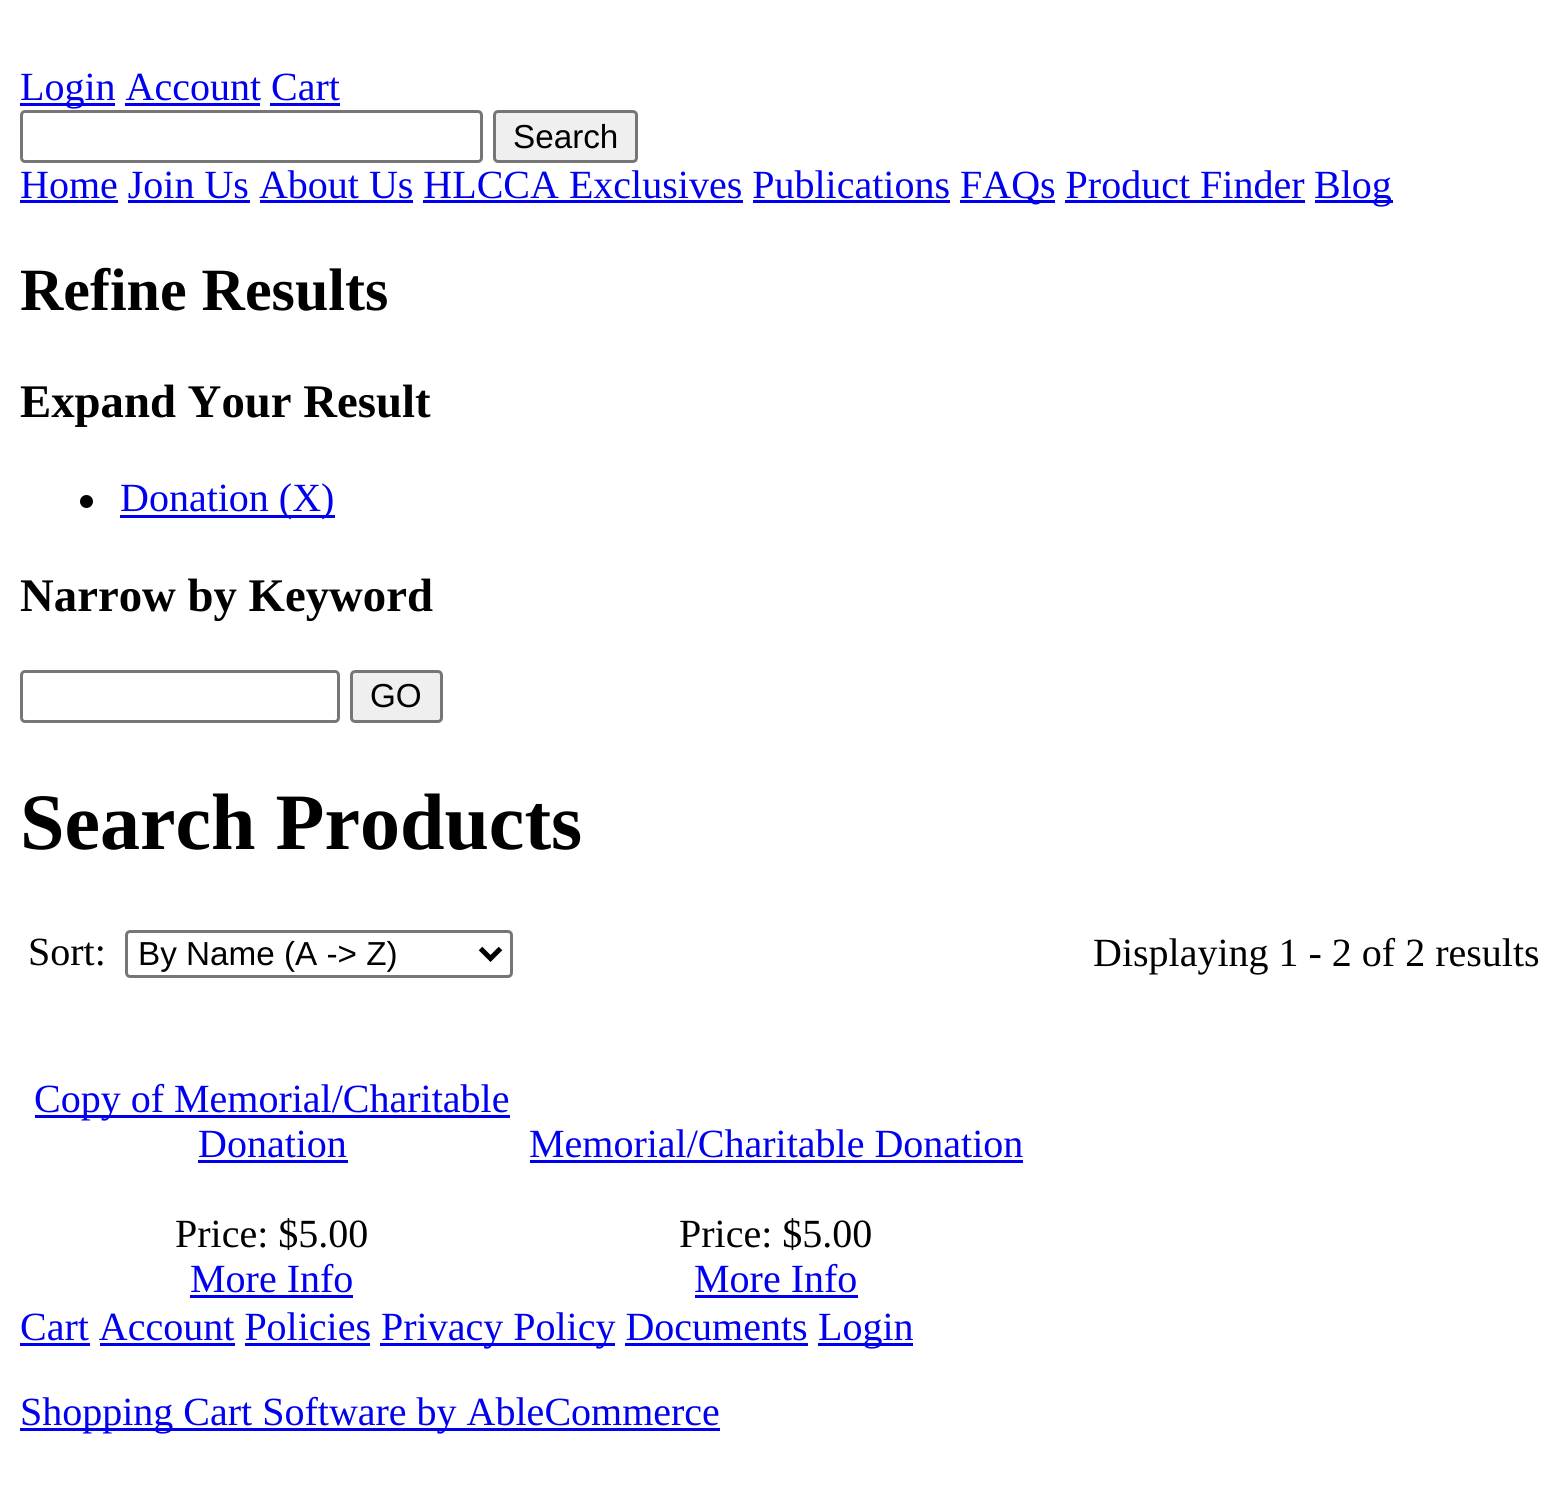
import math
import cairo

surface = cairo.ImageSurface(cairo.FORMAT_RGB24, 1567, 1501)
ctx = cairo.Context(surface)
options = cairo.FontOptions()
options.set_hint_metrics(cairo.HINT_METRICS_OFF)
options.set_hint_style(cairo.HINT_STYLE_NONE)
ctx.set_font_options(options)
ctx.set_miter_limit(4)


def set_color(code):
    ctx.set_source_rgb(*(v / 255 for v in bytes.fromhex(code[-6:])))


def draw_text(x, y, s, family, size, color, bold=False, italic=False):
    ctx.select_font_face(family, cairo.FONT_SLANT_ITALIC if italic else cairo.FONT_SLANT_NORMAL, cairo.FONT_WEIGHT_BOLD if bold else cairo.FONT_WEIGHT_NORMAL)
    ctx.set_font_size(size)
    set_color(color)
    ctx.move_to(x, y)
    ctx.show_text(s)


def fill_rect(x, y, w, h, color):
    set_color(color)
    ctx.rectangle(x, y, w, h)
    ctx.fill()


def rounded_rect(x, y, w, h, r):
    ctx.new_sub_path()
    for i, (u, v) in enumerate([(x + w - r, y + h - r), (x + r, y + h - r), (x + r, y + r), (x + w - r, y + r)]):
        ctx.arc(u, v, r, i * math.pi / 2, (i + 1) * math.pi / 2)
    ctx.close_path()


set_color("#ffffff")
ctx.paint()
fill_rect(20, 103, 95, 3, "#0000ee")
draw_text(20, 100, "Login Account Cart", "Liberation Serif", 40, "#0000ee")
fill_rect(125, 103, 135, 3, "#0000ee")
fill_rect(270, 103, 70, 3, "#0000ee")
rounded_rect(21.5, 111.5, 460, 50, 3.5)
set_color("#767676")
ctx.set_line_width(3)
ctx.stroke()
set_color("#efefef")
rounded_rect(494.5, 111.5, 142, 50, 3.5)
ctx.fill_preserve()
set_color("#767676")
ctx.stroke()
draw_text(513, 148, "Search", "Liberation Sans", 33.25, "#000000")
draw_text(20, 198, "Home Join Us About Us HLCCA Exclusives Publications", "Liberation Serif", 40, "#0000ee")
fill_rect(20, 200, 98, 3, "#0000ee")
fill_rect(960, 200, 95, 3, "#0000ee")
draw_text(960, 198, "FAQs Product Finder", "Liberation Serif", 40, "#0000ee")
fill_rect(1315, 200, 78, 3, "#0000ee")
draw_text(1314, 198, "Blog", "Liberation Serif", 40, "#0000ee")
fill_rect(128, 200, 122, 3, "#0000ee")
fill_rect(260, 200, 153, 3, "#0000ee")
fill_rect(423, 200, 320, 3, "#0000ee")
fill_rect(753, 200, 197, 3, "#0000ee")
fill_rect(1065, 200, 240, 3, "#0000ee")
draw_text(20, 310, "Refine Results", "Liberation Serif", 60, "#000000", bold=True)
draw_text(20, 417, "Expand Your Result", "Liberation Serif", 46.75, "#000000", bold=True)
ctx.new_path()
ctx.arc(86.5, 501.5, 6.5, 0, 2 * math.pi)
ctx.fill()
fill_rect(120, 515, 215, 3, "#0000ee")
draw_text(120, 511, "Donation (X)", "Liberation Serif", 40, "#0000ee")
draw_text(20, 611, "Narrow by Keyword", "Liberation Serif", 46.75, "#000000", bold=True)
rounded_rect(21.5, 671.5, 317, 50, 3.5)
set_color("#767676")
ctx.stroke()
set_color("#efefef")
rounded_rect(351.5, 671.5, 90, 50, 3.5)
ctx.fill_preserve()
set_color("#767676")
ctx.stroke()
draw_text(370, 707, "GO", "Liberation Sans", 33.25, "#000000")
draw_text(20, 849, "Search Products", "Liberation Serif", 80, "#000000", bold=True)
draw_text(28, 965, "Sort:", "Liberation Serif", 40, "#000000")
rounded_rect(126.5, 931.5, 385, 45, 3.5)
set_color("#767676")
ctx.stroke()
ctx.new_path()
ctx.move_to(480.5, 948.5)
ctx.line_to(490.5, 958.5)
ctx.line_to(500.5, 948.5)
set_color("#000000")
ctx.set_line_width(5)
ctx.stroke()
draw_text(138, 965, "By Name (A -> Z)", "Liberation Sans", 33.25, "#000000")
draw_text(1093, 966, "Displaying 1 - 2 of 2 results", "Liberation Serif", 40, "#000000")
fill_rect(35, 1115, 475, 3, "#0000ee")
draw_text(34, 1112, "Copy of Memorial/Charitable", "Liberation Serif", 40, "#0000ee")
draw_text(198, 1157, "Donation", "Liberation Serif", 40, "#0000ee")
fill_rect(198, 1160, 150, 3, "#0000ee")
draw_text(175, 1247, "Price: $5.00", "Liberation Serif", 40, "#000000")
draw_text(190, 1292, "More Info", "Liberation Serif", 40, "#0000ee")
fill_rect(190, 1295, 163, 3, "#0000ee")
draw_text(529, 1157, "Memorial/Charitable Donation", "Liberation Serif", 40, "#0000ee")
fill_rect(530, 1160, 493, 3, "#0000ee")
draw_text(679, 1247, "Price: $5.00", "Liberation Serif", 40, "#000000")
draw_text(694, 1292, "More Info", "Liberation Serif", 40, "#0000ee")
fill_rect(695, 1295, 163, 3, "#0000ee")
draw_text(20, 1340, "Cart Account Policies", "Liberation Serif", 40, "#0000ee")
fill_rect(20, 1343, 70, 3, "#0000ee")
fill_rect(380, 1343, 235, 3, "#0000ee")
draw_text(381, 1340, "Privacy Policy Documents", "Liberation Serif", 40, "#0000ee")
fill_rect(818, 1343, 95, 3, "#0000ee")
draw_text(818, 1340, "Login", "Liberation Serif", 40, "#0000ee")
fill_rect(100, 1343, 135, 3, "#0000ee")
fill_rect(245, 1343, 125, 3, "#0000ee")
fill_rect(625, 1343, 183, 3, "#0000ee")
fill_rect(20, 1428, 700, 3, "#0000ee")
draw_text(20, 1425, "Shopping Cart Software by AbleCommerce", "Liberation Serif", 40, "#0000ee")
surface.write_to_png("output.png")
